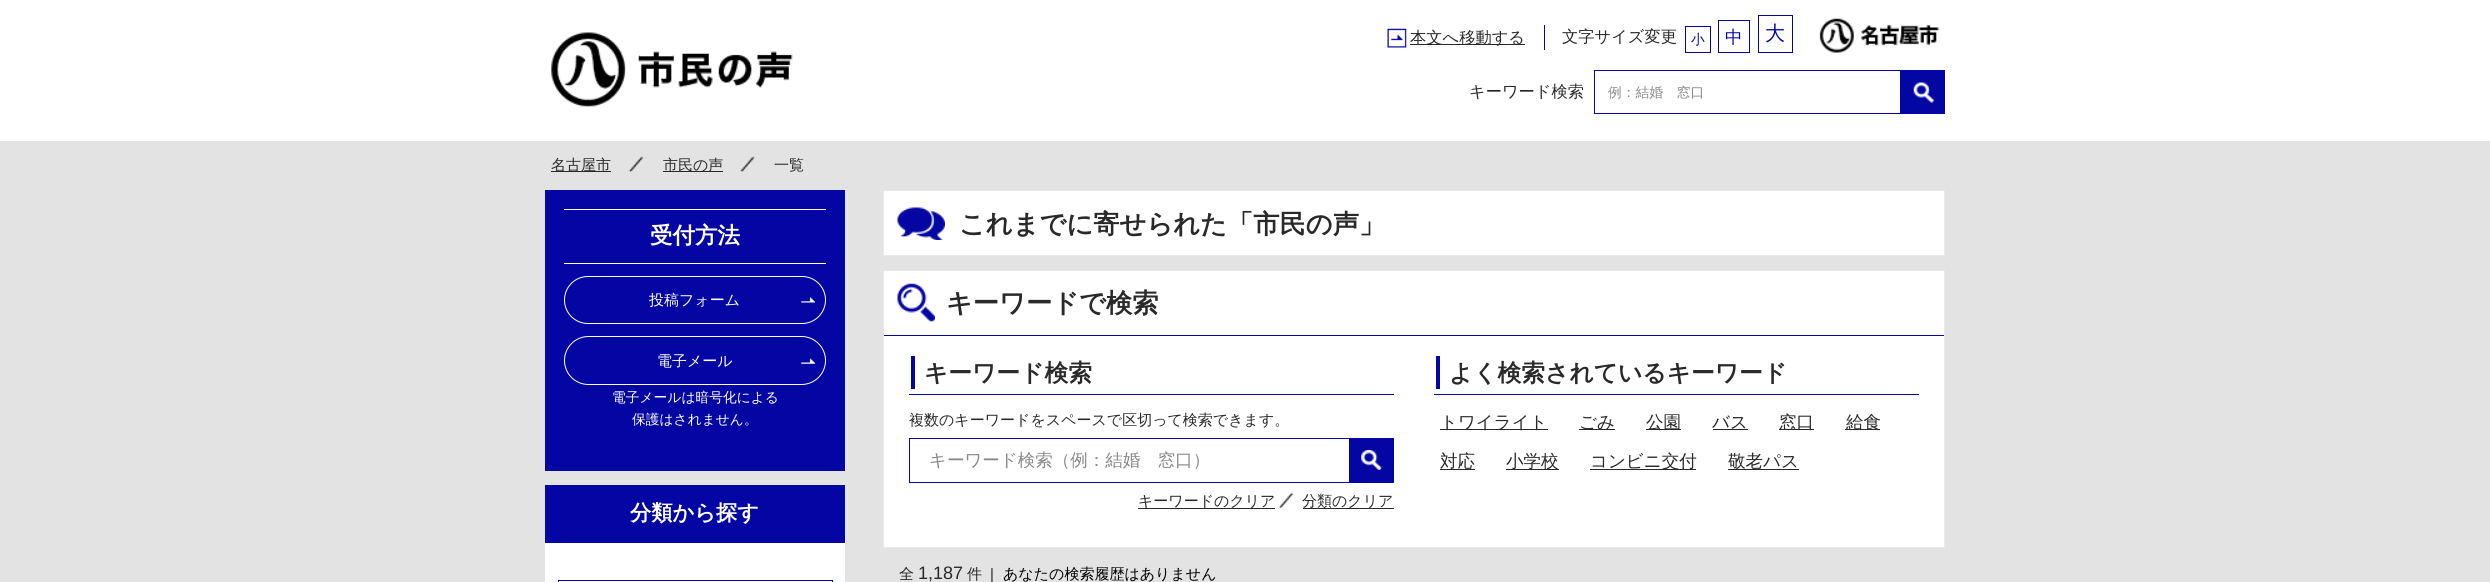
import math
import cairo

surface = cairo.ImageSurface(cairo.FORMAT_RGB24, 2490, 582)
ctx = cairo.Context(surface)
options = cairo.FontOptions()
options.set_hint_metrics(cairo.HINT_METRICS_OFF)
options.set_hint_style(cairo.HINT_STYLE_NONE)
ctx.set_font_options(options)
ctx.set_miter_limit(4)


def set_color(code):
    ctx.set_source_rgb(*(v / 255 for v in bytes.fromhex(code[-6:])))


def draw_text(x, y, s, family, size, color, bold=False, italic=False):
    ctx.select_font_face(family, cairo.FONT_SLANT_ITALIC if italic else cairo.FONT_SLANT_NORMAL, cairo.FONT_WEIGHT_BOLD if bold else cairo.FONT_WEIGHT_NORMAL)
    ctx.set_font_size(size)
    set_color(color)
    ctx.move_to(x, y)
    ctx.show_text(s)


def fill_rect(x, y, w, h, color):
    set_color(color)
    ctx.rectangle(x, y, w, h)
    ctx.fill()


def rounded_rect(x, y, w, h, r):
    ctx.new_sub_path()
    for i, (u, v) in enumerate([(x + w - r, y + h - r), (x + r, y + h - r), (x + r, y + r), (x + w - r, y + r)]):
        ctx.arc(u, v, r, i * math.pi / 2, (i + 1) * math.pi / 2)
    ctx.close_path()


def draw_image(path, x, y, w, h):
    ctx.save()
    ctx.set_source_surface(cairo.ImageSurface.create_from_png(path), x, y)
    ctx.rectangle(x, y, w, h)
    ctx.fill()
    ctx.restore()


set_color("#e3e3e3")
ctx.paint()
fill_rect(0, 0, 2490, 141, "#ffffff")
draw_image("assets/img1.png", 551, 32, 242, 75)
draw_image("assets/img2.png", 1387, 28, 20, 20)
fill_rect(1410, 44, 115, 1, "#292929")
draw_text(1410, 43, "本文へ移動する", "WenQuanYi Zen Hei Medium", 16.25, "#292929")
fill_rect(1544, 25, 1, 25, "#0406a3")
draw_text(1562, 42, "文字サイズ変更", "WenQuanYi Zen Hei Medium", 16.25, "#292929")
ctx.rectangle(1685.5, 26.5, 25, 26)
set_color("#0406a3")
ctx.set_line_width(1)
ctx.stroke()
draw_text(1691, 44, "小", "WenQuanYi Zen Hei Medium", 13.75, "#0406a3")
ctx.rectangle(1718.5, 20.5, 31, 32)
ctx.stroke()
draw_text(1725, 43, "中", "WenQuanYi Zen Hei Medium", 17.5, "#0406a3")
ctx.rectangle(1758.5, 15.5, 34, 37)
ctx.stroke()
draw_text(1765, 40, "大", "WenQuanYi Zen Hei Medium", 20, "#0406a3")
draw_image("assets/img3.png", 1819, 18, 120, 35)
draw_text(1469, 97, "キーワード検索", "WenQuanYi Zen Hei Medium", 16.25, "#292929")
ctx.rectangle(1594.5, 70.5, 306, 43)
set_color("#0406a3")
ctx.stroke()
draw_text(1608, 97, "例：結婚　窓口", "WenQuanYi Zen Hei Medium", 13.75, "#888888")
fill_rect(1901, 70, 44, 44, "#0406a3")
draw_image("assets/img4.png", 1913, 82, 21, 21)
fill_rect(551, 171, 60, 1, "#292929")
draw_text(551, 170, "名古屋市", "WenQuanYi Zen Hei Medium", 15, "#292929")
draw_image("assets/img5.png", 628, 156, 16, 16)
fill_rect(663, 171, 60, 1, "#292929")
draw_text(663, 170, "市民の声", "WenQuanYi Zen Hei Medium", 15, "#292929")
draw_image("assets/img6.png", 740, 156, 15, 16)
draw_text(774, 170, "一覧", "WenQuanYi Zen Hei Medium", 15, "#292929")
fill_rect(545, 190, 300, 281, "#0406a3")
fill_rect(564, 209, 262, 1, "#ffffff")
fill_rect(564, 263, 262, 1, "#ffffff")
draw_text(650, 243, "受付方法", "WenQuanYi Zen Hei", 22.5, "#ffffff", bold=True)
rounded_rect(564.5, 276.5, 261, 47, 23.5)
ctx.stroke()
draw_text(649, 305, "投稿フォーム", "WenQuanYi Zen Hei Medium", 15, "#ffffff")
draw_image("assets/img7.png", 801, 297, 14, 6)
rounded_rect(564.5, 336.5, 261, 48, 24)
ctx.stroke()
draw_text(657, 366, "電子メール", "WenQuanYi Zen Hei Medium", 15, "#ffffff")
draw_image("assets/img8.png", 801, 358, 14, 6)
draw_text(612, 402, "電子メールは暗号化による", "WenQuanYi Zen Hei Medium", 13.75, "#ffffff")
draw_text(632, 424, "保護はされません。", "WenQuanYi Zen Hei Medium", 13.75, "#ffffff")
fill_rect(545, 543, 300, 39, "#ffffff")
fill_rect(545, 485, 300, 58, "#0406a3")
draw_text(630, 520, "分類から探す", "WenQuanYi Zen Hei", 21.25, "#ffffff", bold=True)
ctx.rectangle(558.5, 580.5, 274, 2)
set_color("#0406a3")
ctx.stroke()
set_color("#ffffff")
ctx.rectangle(883.5, 190.5, 1061, 65)
ctx.fill_preserve()
set_color("#ece7ef")
ctx.stroke()
draw_image("assets/img9.png", 897, 207, 48, 33)
draw_text(959, 233, "これまでに寄せられた「市民の声」", "WenQuanYi Zen Hei", 26.25, "#292929", bold=True)
set_color("#ffffff")
ctx.rectangle(883.5, 270.5, 1061, 277)
ctx.fill_preserve()
set_color("#ece7ef")
ctx.stroke()
fill_rect(884, 335, 1060, 1, "#0406a3")
draw_image("assets/img10.png", 897, 283, 38, 39)
draw_text(946, 312, "キーワードで検索", "WenQuanYi Zen Hei", 26.25, "#292929", bold=True)
fill_rect(909, 394, 485, 1, "#0406a3")
fill_rect(911, 356, 4, 33, "#0406a3")
draw_text(924, 381, "キーワード検索", "WenQuanYi Zen Hei", 23.75, "#292929", bold=True)
draw_text(909, 425, "複数のキーワードをスペースで区切って検索できます。", "WenQuanYi Zen Hei Medium", 15, "#292929")
ctx.rectangle(909.5, 438.5, 484, 44)
set_color("#0406a3")
ctx.stroke()
draw_text(929, 466, "キーワード検索（例：結婚　窓口）", "WenQuanYi Zen Hei Medium", 17.5, "#888888")
fill_rect(1349, 439, 44, 43, "#0406a3")
draw_image("assets/img11.png", 1361, 450, 21, 20)
fill_rect(1138, 508, 137, 1, "#292929")
draw_text(1138, 506, "キーワードのクリア", "WenQuanYi Zen Hei Medium", 15, "#292929")
draw_image("assets/img12.png", 1278, 492, 16, 16)
fill_rect(1303, 508, 91, 1, "#292929")
draw_text(1302, 506, "分類のクリア", "WenQuanYi Zen Hei Medium", 15, "#292929")
fill_rect(1434, 394, 485, 1, "#0406a3")
fill_rect(1436, 356, 4, 33, "#0406a3")
draw_text(1449, 381, "よく検索されているキーワード", "WenQuanYi Zen Hei", 23.75, "#292929", bold=True)
fill_rect(1440, 429, 108, 1, "#292929")
draw_text(1440, 428, "トワイライト", "WenQuanYi Zen Hei Medium", 17.5, "#292929")
fill_rect(1579, 429, 36, 1, "#292929")
draw_text(1579, 428, "ごみ", "WenQuanYi Zen Hei Medium", 17.5, "#292929")
fill_rect(1646, 429, 35, 1, "#292929")
draw_text(1646, 428, "公園", "WenQuanYi Zen Hei Medium", 17.5, "#292929")
draw_text(1712, 428, "バス", "WenQuanYi Zen Hei Medium", 17.5, "#292929")
fill_rect(1713, 429, 35, 1, "#292929")
fill_rect(1779, 429, 35, 1, "#292929")
draw_text(1779, 428, "窓口", "WenQuanYi Zen Hei Medium", 17.5, "#292929")
fill_rect(1845, 429, 35, 1, "#292929")
draw_text(1846, 428, "給食", "WenQuanYi Zen Hei Medium", 17.5, "#292929")
draw_text(1440, 467, "対応", "WenQuanYi Zen Hei Medium", 17.5, "#292929")
fill_rect(1440, 469, 35, 1, "#292929")
fill_rect(1506, 469, 53, 1, "#292929")
draw_text(1506, 467, "小学校", "WenQuanYi Zen Hei Medium", 17.5, "#292929")
fill_rect(1590, 469, 106, 1, "#292929")
draw_text(1590, 467, "コンビニ交付", "WenQuanYi Zen Hei Medium", 17.5, "#292929")
fill_rect(1728, 469, 71, 1, "#292929")
draw_text(1728, 467, "敬老パス", "WenQuanYi Zen Hei Medium", 17.5, "#292929")
draw_text(899, 579, "全", "WenQuanYi Zen Hei Medium", 15, "#292929")
draw_text(918, 579, "1,187", "Liberation Sans", 18, "#292929")
draw_text(967, 579, "件", "WenQuanYi Zen Hei Medium", 15, "#292929")
draw_text(990, 579, "|", "Liberation Sans", 15, "#292929")
draw_text(1003, 579, "あなたの検索履歴はありません", "WenQuanYi Zen Hei Medium", 15, "#000000")
surface.write_to_png("output.png")
